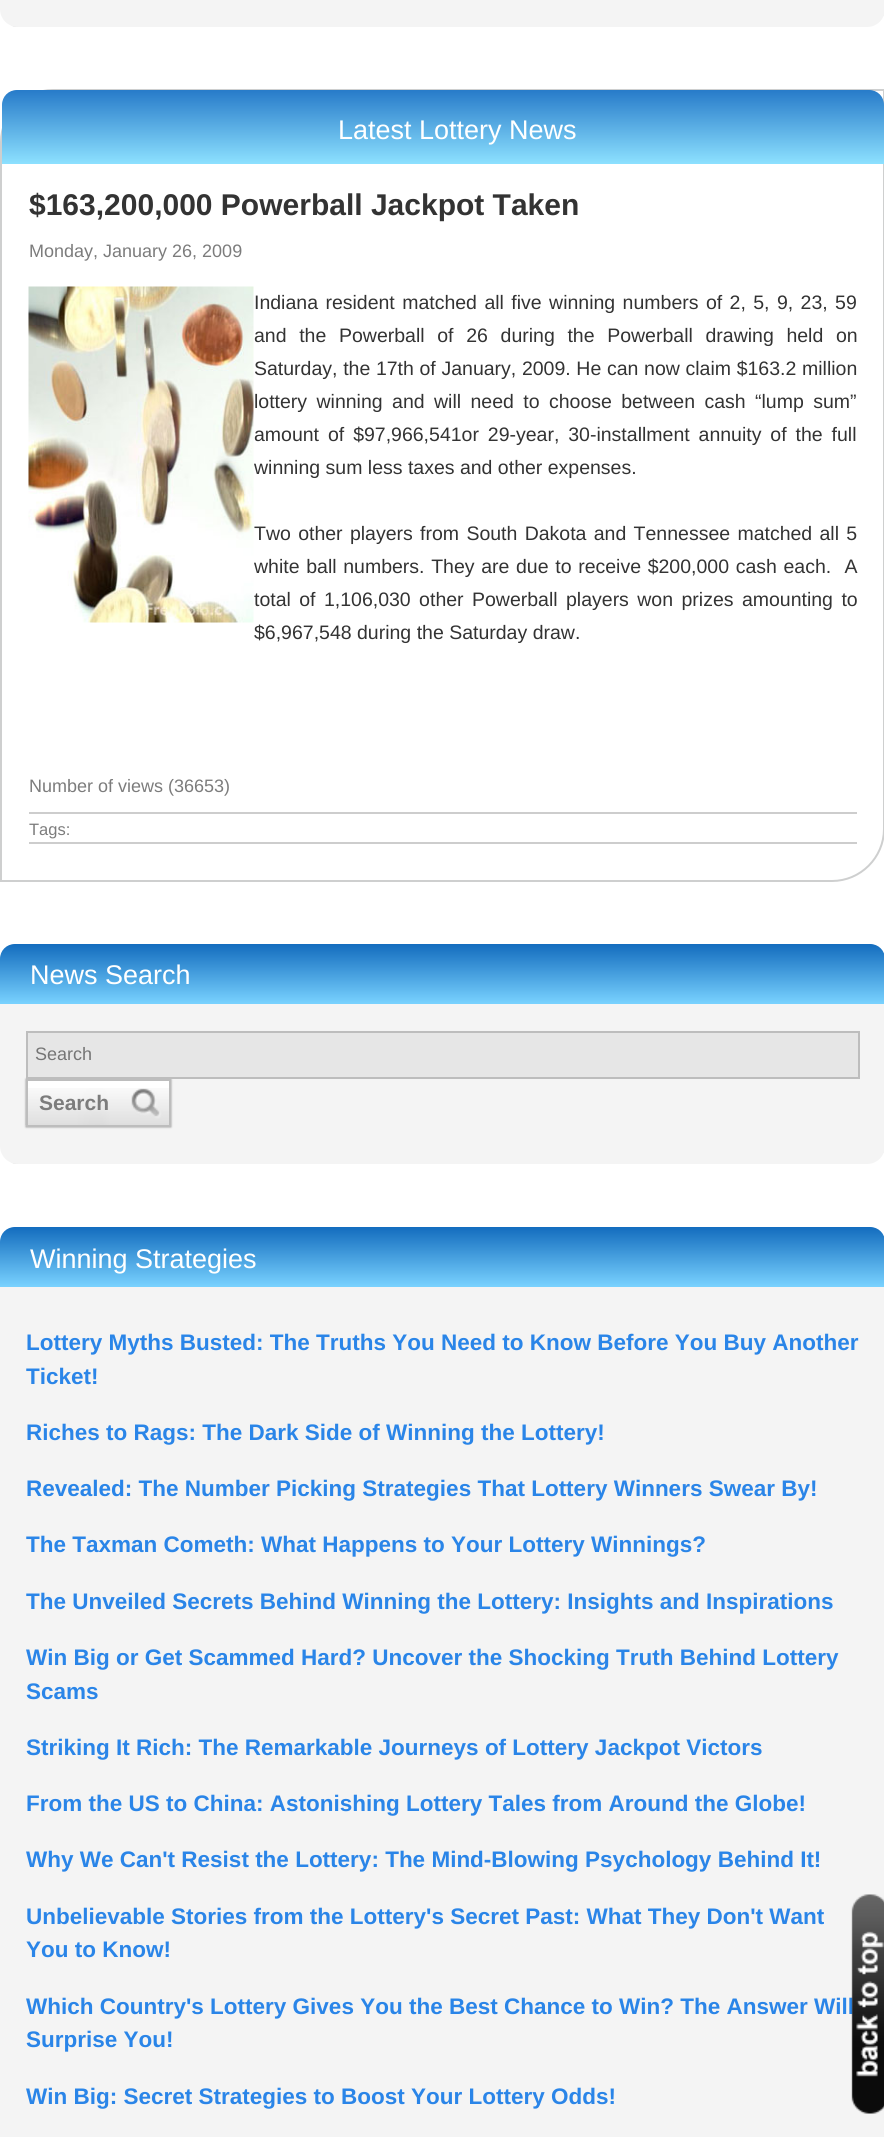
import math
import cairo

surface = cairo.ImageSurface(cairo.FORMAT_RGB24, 884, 2137)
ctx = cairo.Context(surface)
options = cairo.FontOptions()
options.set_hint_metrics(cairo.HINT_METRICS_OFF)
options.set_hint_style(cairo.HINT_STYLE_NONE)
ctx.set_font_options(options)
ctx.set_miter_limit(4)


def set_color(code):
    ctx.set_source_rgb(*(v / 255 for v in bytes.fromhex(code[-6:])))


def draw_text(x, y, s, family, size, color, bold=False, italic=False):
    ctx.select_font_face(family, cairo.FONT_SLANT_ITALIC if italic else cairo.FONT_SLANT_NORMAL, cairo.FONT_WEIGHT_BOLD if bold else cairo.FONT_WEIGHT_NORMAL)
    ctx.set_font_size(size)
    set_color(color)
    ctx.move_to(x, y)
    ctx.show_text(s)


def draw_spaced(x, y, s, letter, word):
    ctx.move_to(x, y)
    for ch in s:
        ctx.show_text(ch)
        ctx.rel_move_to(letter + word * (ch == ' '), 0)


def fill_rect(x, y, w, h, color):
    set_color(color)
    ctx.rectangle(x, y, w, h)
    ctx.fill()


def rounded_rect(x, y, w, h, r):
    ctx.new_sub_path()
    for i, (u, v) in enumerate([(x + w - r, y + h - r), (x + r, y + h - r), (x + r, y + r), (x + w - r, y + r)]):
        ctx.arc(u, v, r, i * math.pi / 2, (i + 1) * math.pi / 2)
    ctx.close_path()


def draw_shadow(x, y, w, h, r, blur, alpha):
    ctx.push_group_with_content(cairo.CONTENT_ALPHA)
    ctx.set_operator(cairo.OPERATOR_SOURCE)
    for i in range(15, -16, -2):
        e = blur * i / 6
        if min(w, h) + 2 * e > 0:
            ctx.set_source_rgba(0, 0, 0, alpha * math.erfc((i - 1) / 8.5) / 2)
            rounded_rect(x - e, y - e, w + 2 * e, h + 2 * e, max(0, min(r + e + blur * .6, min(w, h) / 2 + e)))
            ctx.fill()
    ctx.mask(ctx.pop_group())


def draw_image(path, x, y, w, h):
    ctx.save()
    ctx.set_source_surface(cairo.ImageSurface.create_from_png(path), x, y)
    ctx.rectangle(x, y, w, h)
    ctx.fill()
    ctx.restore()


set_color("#ffffff")
ctx.paint()
set_color("#e5e6e6")
ctx.new_path()
ctx.move_to(52, -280)
ctx.line_to(870, -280)
ctx.curve_to(878, -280, 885, -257, 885, -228)
ctx.line_to(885, 12)
ctx.curve_to(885, 20, 861, 27, 832, 27)
ctx.line_to(15, 27)
ctx.curve_to(7, 27, 0, 3, 0, -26)
ctx.line_to(0, -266)
ctx.curve_to(0, -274, 24, -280, 52, -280)
ctx.close_path()
ctx.fill()
set_color("#f4f4f4")
ctx.new_path()
ctx.move_to(0, -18)
ctx.line_to(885, -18)
ctx.line_to(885, 9)
ctx.curve_to(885, 19, 877, 27, 867, 27)
ctx.line_to(18, 27)
ctx.curve_to(8, 27, 0, 19, 0, 9)
ctx.close_path()
ctx.fill()
ctx.new_path()
ctx.move_to(53, 90)
ctx.line_to(884, 90)
ctx.line_to(884, 829)
ctx.curve_to(884, 857.5, 860.5, 881, 832, 881)
ctx.line_to(1, 881)
ctx.line_to(1, 142)
ctx.curve_to(1, 113.5, 24.5, 90, 53, 90)
ctx.close_path()
set_color("#cecfcf")
ctx.stroke()
gradient = cairo.LinearGradient(443, 90, 443, 164)
gradient.add_color_stop_rgba(0, 0.153, 0.482, 0.788, 1)
gradient.add_color_stop_rgba(1, 0.553, 0.882, 1, 1)
ctx.set_source(gradient)
ctx.new_path()
ctx.move_to(17, 90)
ctx.line_to(869, 90)
ctx.curve_to(877.5, 90, 884, 96.5, 884, 105)
ctx.line_to(884, 164)
ctx.line_to(2, 164)
ctx.line_to(2, 105)
ctx.curve_to(2, 96.5, 8.5, 90, 17, 90)
ctx.close_path()
ctx.fill()
draw_text(338, 139, "Latest Lottery News", "Liberation Sans", 27, "#ffffff")
draw_text(29, 215, "$163,200,000 Powerball Jackpot Taken", "Liberation Sans", 30, "#333333", bold=True)
draw_text(29, 257, "Monday, January 26, 2009", "Liberation Sans", 18, "#7c7c7c")
draw_image("assets/img1.png", 28, 286, 226, 337)
ctx.set_font_size(19.5)
set_color("#333333")
draw_spaced(254, 309, "Indiana resident matched all five winning numbers of 2, 5, 9, 23, 59", 0, 2)
draw_spaced(254, 342, "and the Powerball of 26 during the Powerball drawing held on", 0, 7.25)
draw_spaced(254, 375, "Saturday, the 17th of January, 2009. He can now claim $163.2 million", 0, 0.25)
draw_spaced(254, 408, "lottery winning and will need to choose between cash “lump sum”", 0, 4)
draw_spaced(254, 441, "amount of $97,966,541or 29-year, 30-installment annuity of the full", 0, 3.5)
draw_text(254, 474, "winning sum less taxes and other expenses.", "Liberation Sans", 19.5, "#333333")
draw_spaced(254, 540, "Two other players from South Dakota and Tennessee matched all 5", 0, 1.9)
draw_spaced(254, 573, "white ball numbers. They are due to receive $200,000 cash each.  A", 0, 1.25)
draw_spaced(254, 606, "total of 1,106,030 other Powerball players won prizes amounting to", 0, 3)
draw_text(254, 639, "$6,967,548 during the Saturday draw.", "Liberation Sans", 19.5, "#333333")
draw_text(29, 792, "Number of views (36653)", "Liberation Sans", 18, "#7c7c7c")
fill_rect(29, 812, 828, 2, "#cdcdcd")
fill_rect(29, 842, 828, 2, "#cdcdcd")
draw_text(29, 835, "Tags:", "Liberation Sans", 16.5, "#7c7c7c")
set_color("#e5e6e6")
ctx.new_path()
ctx.move_to(52, 944)
ctx.line_to(870, 944)
ctx.curve_to(878, 944, 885, 967, 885, 996)
ctx.line_to(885, 1149)
ctx.curve_to(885, 1157, 861, 1164, 832, 1164)
ctx.line_to(15, 1164)
ctx.curve_to(7, 1164, 0, 1140, 0, 1112)
ctx.line_to(0, 958)
ctx.curve_to(0, 950, 24, 944, 52, 944)
ctx.close_path()
ctx.fill()
gradient = cairo.LinearGradient(443, 944, 443, 1004)
gradient.add_color_stop_rgba(0, 0.075, 0.424, 0.745, 1)
gradient.add_color_stop_rgba(1, 0.475, 0.824, 1, 1)
ctx.set_source(gradient)
ctx.new_path()
ctx.move_to(15, 944)
ctx.line_to(870, 944)
ctx.curve_to(878.5, 944, 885, 950.5, 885, 959)
ctx.line_to(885, 1004)
ctx.line_to(0, 1004)
ctx.line_to(0, 959)
ctx.curve_to(0, 950.5, 6.5, 944, 15, 944)
ctx.close_path()
ctx.fill()
draw_text(30, 984, "News Search", "Liberation Sans", 27, "#ffffff")
set_color("#f4f4f4")
ctx.new_path()
ctx.move_to(0, 1004)
ctx.line_to(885, 1004)
ctx.line_to(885, 1146)
ctx.curve_to(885, 1156, 877, 1164, 867, 1164)
ctx.line_to(18, 1164)
ctx.curve_to(8, 1164, 0, 1156, 0, 1146)
ctx.close_path()
ctx.fill()
set_color("#888888")
draw_shadow(26, 1079, 145, 48, 0, 1, 1)
set_color("#e6e6e6")
ctx.rectangle(27, 1032, 832, 46)
ctx.fill_preserve()
set_color("#bdbdbd")
ctx.stroke()
draw_text(35, 1060, "Search", "Liberation Sans", 18, "#757575")
fill_rect(28, 1081, 141, 44, "#ffffff")
draw_image("assets/img2.png", 25, 1088, 144, 37)
ctx.rectangle(27, 1080, 143, 46)
set_color("#bdbdbd")
ctx.stroke()
draw_text(39, 1110, "Search", "Liberation Sans", 21, "#7c7c7c", bold=True)
gradient = cairo.LinearGradient(443, 1227, 443, 1287)
gradient.add_color_stop_rgba(0, 0.075, 0.424, 0.745, 1)
gradient.add_color_stop_rgba(1, 0.475, 0.824, 1, 1)
ctx.set_source(gradient)
ctx.new_path()
ctx.move_to(15, 1227)
ctx.line_to(870, 1227)
ctx.curve_to(878.5, 1227, 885, 1233.5, 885, 1242)
ctx.line_to(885, 1287)
ctx.line_to(0, 1287)
ctx.line_to(0, 1242)
ctx.curve_to(0, 1233.5, 6.5, 1227, 15, 1227)
ctx.close_path()
ctx.fill()
draw_text(30, 1268, "Winning Strategies", "Liberation Sans", 27, "#ffffff")
fill_rect(0, 1287, 884, 850, "#f4f4f4")
draw_text(26, 1350, "Lottery Myths Busted: The Truths You Need to Know Before You Buy Another", "Liberation Sans", 22.5, "#2a85e8", bold=True)
draw_text(26, 1384, "Ticket!", "Liberation Sans", 22.5, "#2a85e8", bold=True)
draw_text(26, 1440, "Riches to Rags: The Dark Side of Winning the Lottery!", "Liberation Sans", 22.5, "#2a85e8", bold=True)
draw_text(26, 1496, "Revealed: The Number Picking Strategies That Lottery Winners Swear By!", "Liberation Sans", 22.5, "#2a85e8", bold=True)
draw_text(26, 1552, "The Taxman Cometh: What Happens to Your Lottery Winnings?", "Liberation Sans", 22.5, "#2a85e8", bold=True)
draw_text(26, 1609, "The Unveiled Secrets Behind Winning the Lottery: Insights and Inspirations", "Liberation Sans", 22.5, "#2a85e8", bold=True)
draw_text(26, 1665, "Win Big or Get Scammed Hard? Uncover the Shocking Truth Behind Lottery", "Liberation Sans", 22.5, "#2a85e8", bold=True)
draw_text(26, 1699, "Scams", "Liberation Sans", 22.5, "#2a85e8", bold=True)
draw_text(26, 1755, "Striking It Rich: The Remarkable Journeys of Lottery Jackpot Victors", "Liberation Sans", 22.5, "#2a85e8", bold=True)
draw_text(26, 1811, "From the US to China: Astonishing Lottery Tales from Around the Globe!", "Liberation Sans", 22.5, "#2a85e8", bold=True)
draw_text(26, 1867, "Why We Can't Resist the Lottery: The Mind-Blowing Psychology Behind It!", "Liberation Sans", 22.5, "#2a85e8", bold=True)
draw_text(26, 1924, "Unbelievable Stories from the Lottery's Secret Past: What They Don't Want", "Liberation Sans", 22.5, "#2a85e8", bold=True)
draw_text(26, 1957, "You to Know!", "Liberation Sans", 22.5, "#2a85e8", bold=True)
draw_text(26, 2014, "Which Country's Lottery Gives You the Best Chance to Win? The Answer Will", "Liberation Sans", 22.5, "#2a85e8", bold=True)
draw_text(26, 2047, "Surprise You!", "Liberation Sans", 22.5, "#2a85e8", bold=True)
draw_text(26, 2104, "Win Big: Secret Strategies to Boost Your Lottery Odds!", "Liberation Sans", 22.5, "#2a85e8", bold=True)
draw_image("assets/img3.png", 851, 1894, 33, 220)
surface.write_to_png("output.png")
